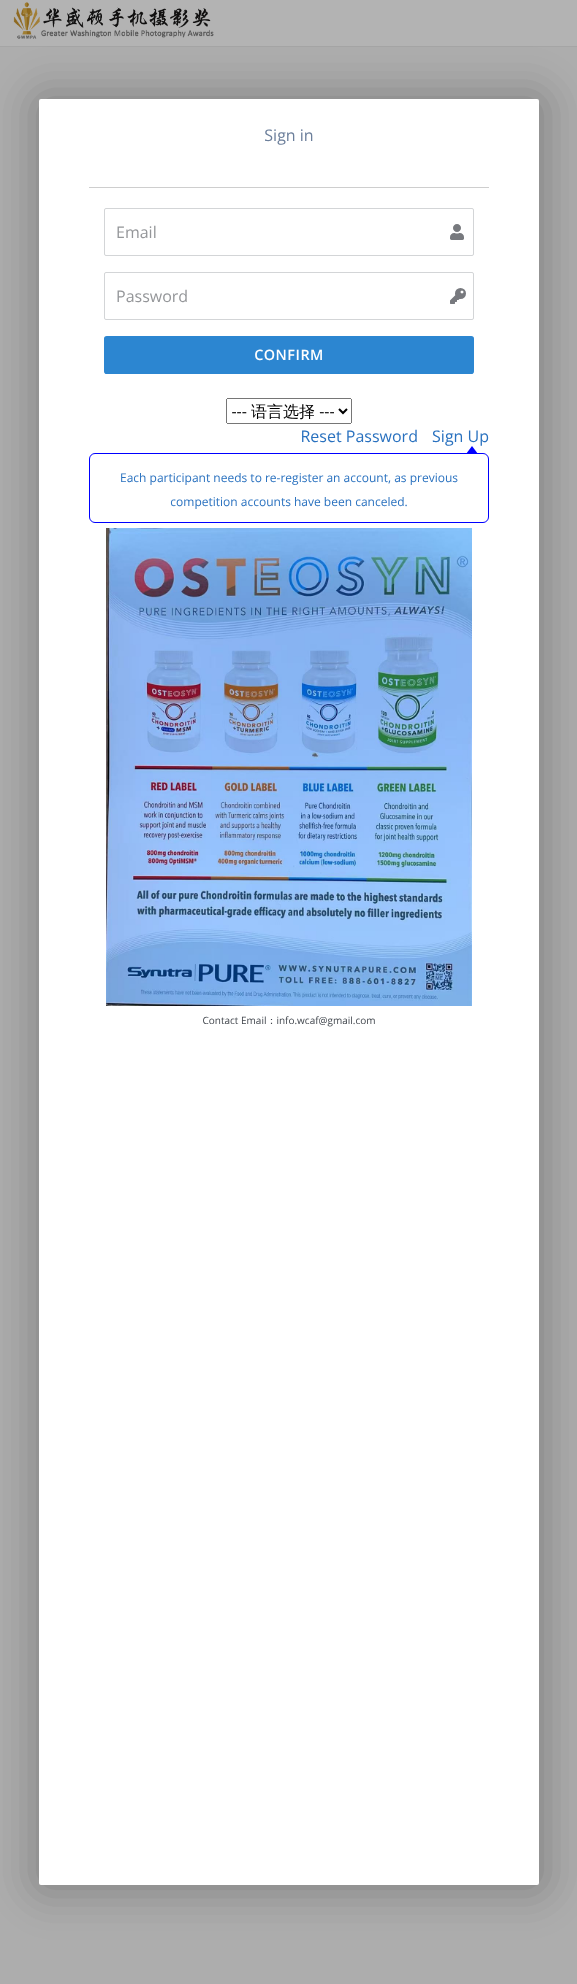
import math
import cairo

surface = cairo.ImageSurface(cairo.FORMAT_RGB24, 577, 1984)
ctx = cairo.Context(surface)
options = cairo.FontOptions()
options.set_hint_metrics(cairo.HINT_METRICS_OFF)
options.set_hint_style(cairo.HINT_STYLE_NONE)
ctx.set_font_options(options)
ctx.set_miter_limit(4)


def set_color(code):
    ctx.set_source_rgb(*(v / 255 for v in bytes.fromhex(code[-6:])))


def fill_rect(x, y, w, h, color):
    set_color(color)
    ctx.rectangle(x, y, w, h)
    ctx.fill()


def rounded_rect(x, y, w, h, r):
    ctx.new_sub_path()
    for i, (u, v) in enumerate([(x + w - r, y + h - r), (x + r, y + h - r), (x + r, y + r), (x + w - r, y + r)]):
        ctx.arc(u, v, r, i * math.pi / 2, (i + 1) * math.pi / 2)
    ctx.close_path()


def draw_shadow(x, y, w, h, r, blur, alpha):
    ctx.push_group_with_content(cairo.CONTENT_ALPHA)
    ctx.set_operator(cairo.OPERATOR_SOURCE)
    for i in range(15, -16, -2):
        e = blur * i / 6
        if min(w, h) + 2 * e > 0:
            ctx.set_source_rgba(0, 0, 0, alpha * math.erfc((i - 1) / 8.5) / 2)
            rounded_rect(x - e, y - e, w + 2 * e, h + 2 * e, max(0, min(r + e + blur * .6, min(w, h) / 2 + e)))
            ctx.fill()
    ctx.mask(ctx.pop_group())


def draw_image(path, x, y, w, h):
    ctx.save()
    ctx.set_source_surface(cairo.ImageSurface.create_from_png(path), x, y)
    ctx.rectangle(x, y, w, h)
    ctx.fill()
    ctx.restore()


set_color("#adadad")
ctx.paint()
fill_rect(0, 0, 577, 46, "#b3b3b3")
fill_rect(0, 46, 577, 1, "#a5a5a5")
draw_image("assets/img1.png", 13, 2, 201, 37)
set_color("#000000")
draw_shadow(40, 100, 500, 1786, 2, 25, 0.3)
draw_image("assets/img2.png", 39, 99, 500, 1786)
surface.write_to_png("output.png")
